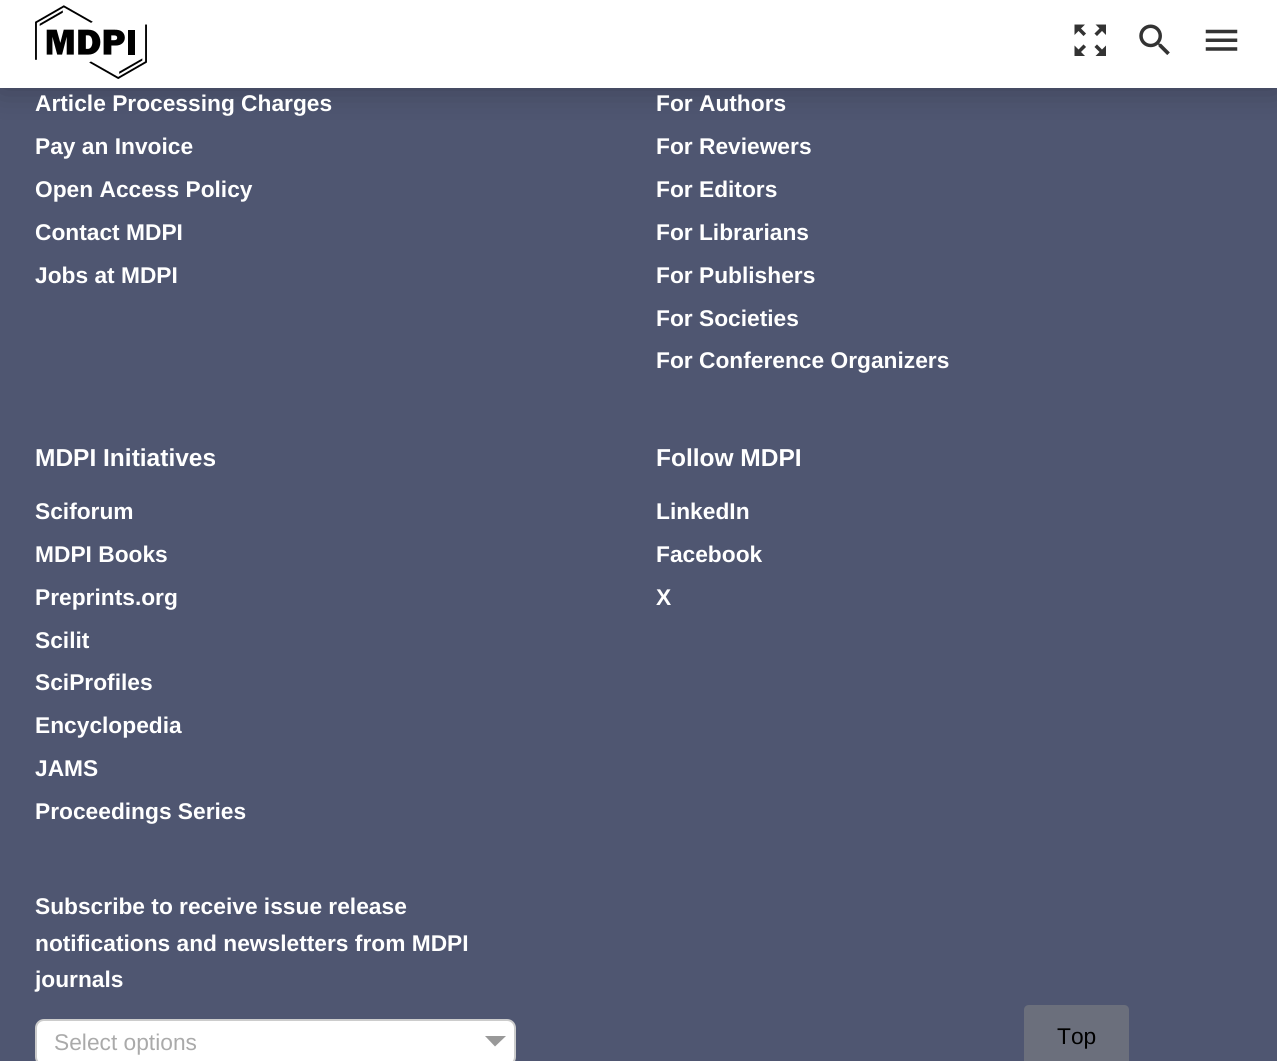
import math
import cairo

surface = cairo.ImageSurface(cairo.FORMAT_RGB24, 1277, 1061)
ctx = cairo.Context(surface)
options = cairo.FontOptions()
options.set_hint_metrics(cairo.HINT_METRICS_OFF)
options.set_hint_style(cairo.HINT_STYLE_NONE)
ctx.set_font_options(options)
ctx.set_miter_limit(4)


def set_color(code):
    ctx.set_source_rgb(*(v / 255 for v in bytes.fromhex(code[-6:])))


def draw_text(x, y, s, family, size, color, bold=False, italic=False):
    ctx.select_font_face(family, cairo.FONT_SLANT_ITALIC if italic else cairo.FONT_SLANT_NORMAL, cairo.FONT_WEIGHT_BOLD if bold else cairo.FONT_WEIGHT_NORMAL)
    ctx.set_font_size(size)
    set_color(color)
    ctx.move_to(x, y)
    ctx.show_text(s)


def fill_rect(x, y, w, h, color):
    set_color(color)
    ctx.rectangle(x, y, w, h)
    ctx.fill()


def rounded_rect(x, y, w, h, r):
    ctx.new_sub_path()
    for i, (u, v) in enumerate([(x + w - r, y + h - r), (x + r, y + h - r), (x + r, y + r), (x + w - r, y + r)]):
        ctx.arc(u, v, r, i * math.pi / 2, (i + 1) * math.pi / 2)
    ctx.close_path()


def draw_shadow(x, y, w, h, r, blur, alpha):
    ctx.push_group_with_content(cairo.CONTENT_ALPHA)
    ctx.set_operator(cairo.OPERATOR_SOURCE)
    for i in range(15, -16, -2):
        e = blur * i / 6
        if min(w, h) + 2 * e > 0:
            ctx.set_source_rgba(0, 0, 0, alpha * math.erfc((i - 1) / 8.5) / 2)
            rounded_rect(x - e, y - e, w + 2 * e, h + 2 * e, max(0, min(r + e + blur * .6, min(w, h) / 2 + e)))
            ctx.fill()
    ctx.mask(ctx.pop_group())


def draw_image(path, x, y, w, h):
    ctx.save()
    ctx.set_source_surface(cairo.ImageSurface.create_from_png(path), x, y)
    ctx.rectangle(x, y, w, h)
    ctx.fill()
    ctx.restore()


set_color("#4f5671")
ctx.paint()
set_color("#000000")
draw_shadow(0, 0, 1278, 88, 0, 17.5, 0.25)
fill_rect(0, 0, 1277, 88, "#ffffff")
draw_image("assets/img1.png", 35, 5, 112, 74)
draw_image("assets/img2.png", 1074, 24, 32, 32)
draw_image("assets/img3.png", 1139, 24, 31, 31)
draw_image("assets/img4.png", 1205, 29, 33, 22)
draw_text(35, 111, "Article Processing Charges", "Liberation Sans", 22.75, "#ffffff", bold=True)
draw_text(35, 154, "Pay an Invoice", "Liberation Sans", 22.75, "#ffffff", bold=True)
draw_text(35, 197, "Open Access Policy", "Liberation Sans", 22.75, "#ffffff", bold=True)
draw_text(35, 240, "Contact MDPI", "Liberation Sans", 22.75, "#ffffff", bold=True)
draw_text(35, 283, "Jobs at MDPI", "Liberation Sans", 22.75, "#ffffff", bold=True)
draw_text(656, 111, "For Authors", "Liberation Sans", 22.75, "#ffffff", bold=True)
draw_text(656, 154, "For Reviewers", "Liberation Sans", 22.75, "#ffffff", bold=True)
draw_text(656, 197, "For Editors", "Liberation Sans", 22.75, "#ffffff", bold=True)
draw_text(656, 240, "For Librarians", "Liberation Sans", 22.75, "#ffffff", bold=True)
draw_text(656, 283, "For Publishers", "Liberation Sans", 22.75, "#ffffff", bold=True)
draw_text(656, 326, "For Societies", "Liberation Sans", 22.75, "#ffffff", bold=True)
draw_text(656, 368, "For Conference Organizers", "Liberation Sans", 22.75, "#ffffff", bold=True)
draw_text(35, 466, "MDPI Initiatives", "Liberation Sans", 24.5, "#ffffff", bold=True)
draw_text(35, 519, "Sciforum", "Liberation Sans", 22.75, "#ffffff", bold=True)
draw_text(35, 562, "MDPI Books", "Liberation Sans", 22.75, "#ffffff", bold=True)
draw_text(35, 605, "Preprints.org", "Liberation Sans", 22.75, "#ffffff", bold=True)
draw_text(35, 648, "Scilit", "Liberation Sans", 22.75, "#ffffff", bold=True)
draw_text(35, 690, "SciProfiles", "Liberation Sans", 22.75, "#ffffff", bold=True)
draw_text(35, 733, "Encyclopedia", "Liberation Sans", 22.75, "#ffffff", bold=True)
draw_text(35, 776, "JAMS", "Liberation Sans", 22.75, "#ffffff", bold=True)
draw_text(35, 819, "Proceedings Series", "Liberation Sans", 22.75, "#ffffff", bold=True)
draw_text(656, 466, "Follow MDPI", "Liberation Sans", 24.5, "#ffffff", bold=True)
draw_text(656, 519, "LinkedIn", "Liberation Sans", 22.75, "#ffffff", bold=True)
draw_text(656, 562, "Facebook", "Liberation Sans", 22.75, "#ffffff", bold=True)
draw_text(656, 605, "X", "Liberation Sans", 22.75, "#ffffff", bold=True)
draw_text(35, 914, "Subscribe to receive issue release", "Liberation Sans", 22.75, "#ffffff", bold=True)
draw_text(35, 951, "notifications and newsletters from MDPI", "Liberation Sans", 22.75, "#ffffff", bold=True)
draw_text(35, 987, "journals", "Liberation Sans", 22.75, "#ffffff", bold=True)
rounded_rect(36, 1020, 479, 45, 8)
ctx.fill_preserve()
set_color("#cccccc")
ctx.stroke()
draw_text(54, 1050, "Select options", "Liberation Sans", 22.75, "#aaaaaa")
set_color("#999999")
ctx.new_path()
ctx.move_to(485, 1036)
ctx.line_to(506, 1036)
ctx.line_to(495, 1046.5)
ctx.close_path()
ctx.fill()
set_color("#6b6f7c")
ctx.new_path()
ctx.move_to(1029, 1005)
ctx.line_to(1124, 1005)
ctx.curve_to(1127, 1005, 1129, 1007, 1129, 1010)
ctx.line_to(1129, 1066)
ctx.line_to(1024, 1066)
ctx.line_to(1024, 1010)
ctx.curve_to(1024, 1007, 1026, 1005, 1029, 1005)
ctx.close_path()
ctx.fill()
draw_text(1057, 1044, "Top", "Liberation Sans", 22.75, "#000000")
surface.write_to_png("output.png")
